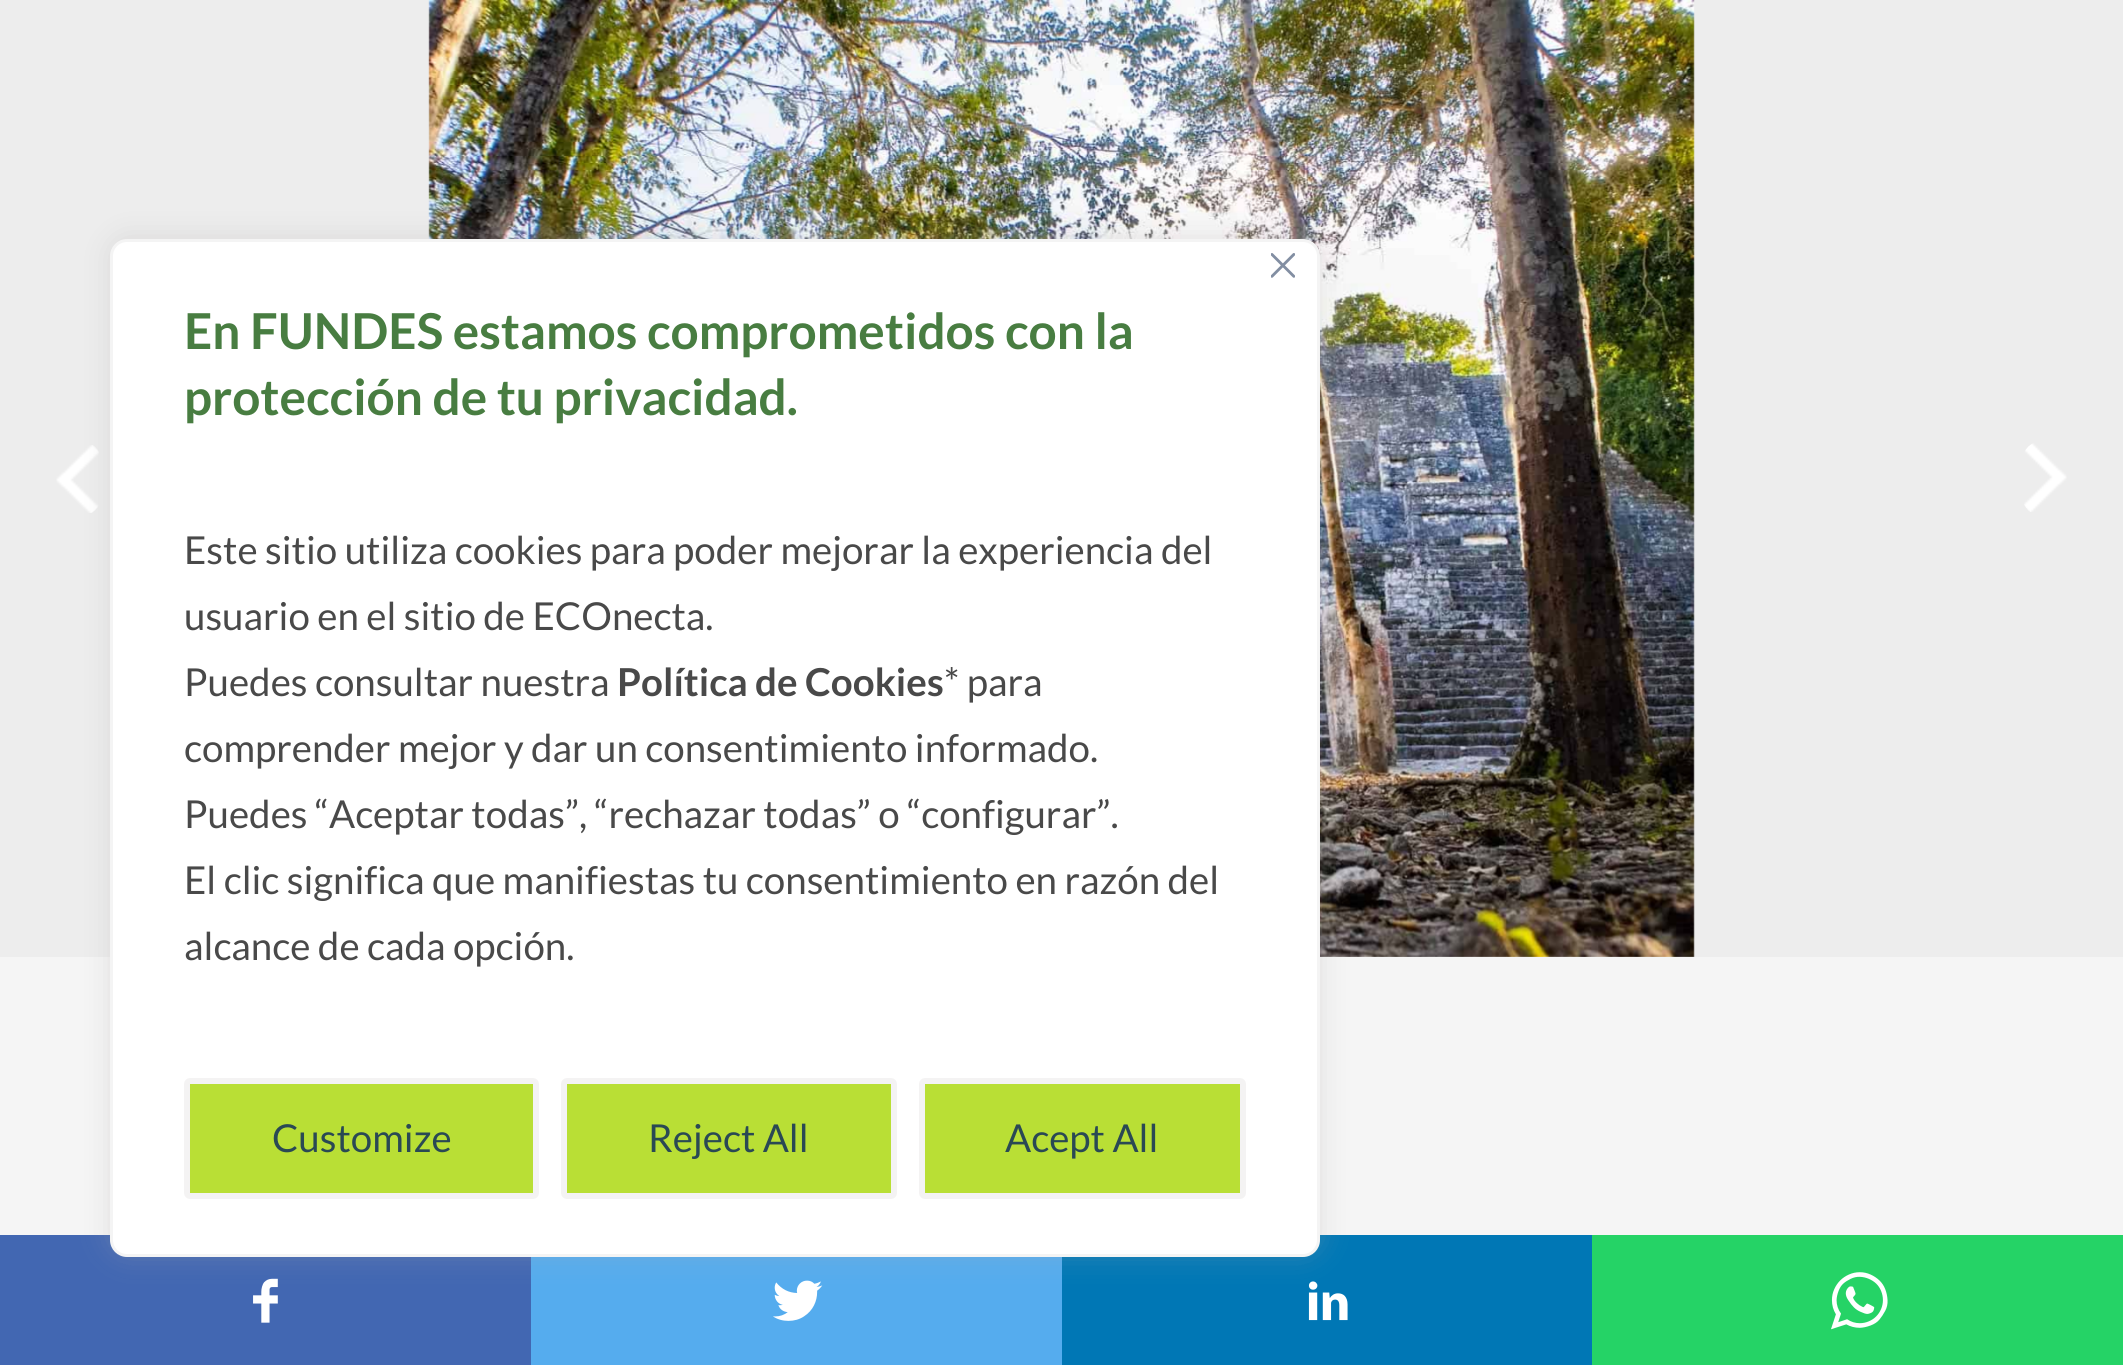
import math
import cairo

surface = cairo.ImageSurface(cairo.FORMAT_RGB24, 2123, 1365)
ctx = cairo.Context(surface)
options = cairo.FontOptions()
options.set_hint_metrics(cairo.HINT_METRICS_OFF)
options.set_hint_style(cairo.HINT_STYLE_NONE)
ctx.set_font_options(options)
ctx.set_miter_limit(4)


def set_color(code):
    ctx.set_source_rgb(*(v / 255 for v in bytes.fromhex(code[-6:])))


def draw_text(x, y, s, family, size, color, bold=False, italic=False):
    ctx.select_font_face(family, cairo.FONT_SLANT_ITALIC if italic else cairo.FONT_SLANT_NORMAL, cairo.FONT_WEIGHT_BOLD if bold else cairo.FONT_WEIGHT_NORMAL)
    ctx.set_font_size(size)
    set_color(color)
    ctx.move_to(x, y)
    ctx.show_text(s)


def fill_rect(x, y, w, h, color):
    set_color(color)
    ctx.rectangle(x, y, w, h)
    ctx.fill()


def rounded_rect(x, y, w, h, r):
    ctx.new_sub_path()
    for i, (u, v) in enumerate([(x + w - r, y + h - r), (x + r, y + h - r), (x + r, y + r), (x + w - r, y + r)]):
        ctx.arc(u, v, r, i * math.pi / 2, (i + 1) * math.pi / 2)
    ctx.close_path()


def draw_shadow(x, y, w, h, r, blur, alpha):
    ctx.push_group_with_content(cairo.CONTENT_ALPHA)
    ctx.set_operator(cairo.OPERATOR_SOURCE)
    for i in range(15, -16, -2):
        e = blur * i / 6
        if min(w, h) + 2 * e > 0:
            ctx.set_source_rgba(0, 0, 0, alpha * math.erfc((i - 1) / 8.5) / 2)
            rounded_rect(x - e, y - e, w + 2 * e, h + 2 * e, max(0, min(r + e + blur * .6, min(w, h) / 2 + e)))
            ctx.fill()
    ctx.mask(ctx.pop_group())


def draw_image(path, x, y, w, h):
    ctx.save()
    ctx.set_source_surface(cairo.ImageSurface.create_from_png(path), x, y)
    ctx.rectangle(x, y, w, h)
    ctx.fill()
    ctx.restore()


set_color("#f5f5f5")
ctx.paint()
fill_rect(0, 0, 2123, 957, "#ededed")
draw_image("assets/img1.png", 428, 0, 1267, 957)
draw_image("assets/img2.png", 56, 445, 43, 68)
draw_image("assets/img3.png", 2024, 443, 43, 69)
draw_image("assets/img4.png", 1343, 881, 14, 14)
draw_image("assets/img5.png", 1425, 881, 15, 15)
draw_image("assets/img6.png", 1508, 881, 15, 14)
draw_image("assets/img7.png", 1590, 881, 15, 14)
fill_rect(0, 1235, 531, 130, "#4267b2")
draw_image("assets/img8.png", 253, 1278, 25, 45)
fill_rect(531, 1257, 531, 108, "#55acee")
draw_image("assets/img9.png", 773, 1280, 50, 41)
fill_rect(1062, 1235, 530, 130, "#0077b5")
draw_image("assets/img10.png", 1308, 1281, 40, 40)
fill_rect(1592, 1235, 531, 130, "#25d366")
draw_image("assets/img11.png", 1831, 1272, 57, 58)
set_color("#acabab")
draw_shadow(110, 237, 1210, 1017, 17, 14, 0.3)
set_color("#ffffff")
rounded_rect(111.5, 240.5, 1207, 1015, 15.5)
ctx.fill_preserve()
set_color("#f4f4f4")
ctx.set_line_width(3)
ctx.stroke()
draw_image("assets/img12.png", 1271, 253, 24, 25)
draw_text(184, 349, "En FUNDES estamos comprometidos con la", "Lato", 49.5, "#487d41", bold=True)
draw_text(184, 415, "protección de tu privacidad.", "Lato", 49.5, "#487d41", bold=True)
draw_text(184, 564, "Este sitio utiliza cookies para poder mejorar la experiencia del", "Lato", 38.5, "#494949")
draw_text(184, 630, "usuario en el sitio de ECOnecta.", "Lato", 38.5, "#494949")
draw_text(184, 696, "Puedes consultar nuestra", "Lato", 38.5, "#494949")
draw_text(617, 696, "Política de Cookies", "Lato", 38.5, "#494949", bold=True)
draw_text(944, 696, "* para", "Lato", 38.5, "#494949")
draw_text(184, 762, "comprender mejor y dar un consentimiento informado.", "Lato", 38.5, "#494949")
draw_text(184, 828, "Puedes “Aceptar todas”, “rechazar todas” o “configurar”.", "Lato", 38.5, "#494949")
draw_text(184, 894, "El clic significa que manifiestas tu consentimiento en razón del", "Lato", 38.5, "#494949")
draw_text(184, 960, "alcance de cada opción.", "Lato", 38.5, "#494949")
set_color("#b9df35")
rounded_rect(187, 1081, 349, 115, 3)
ctx.fill_preserve()
set_color("#f4f3f3")
ctx.set_line_width(6)
ctx.stroke()
draw_text(272, 1152, "Customize", "Lato", 38.5, "#2a4954")
set_color("#b9df35")
rounded_rect(564, 1081, 330, 115, 3)
ctx.fill_preserve()
set_color("#f4f3f3")
ctx.stroke()
draw_text(648, 1152, "Reject All", "Lato", 38.5, "#2a4954")
set_color("#b9df35")
rounded_rect(922, 1081, 321, 115, 3)
ctx.fill_preserve()
set_color("#f4f3f3")
ctx.stroke()
draw_text(1005, 1152, "Acept All", "Lato", 38.5, "#2a4954")
surface.write_to_png("output.png")
